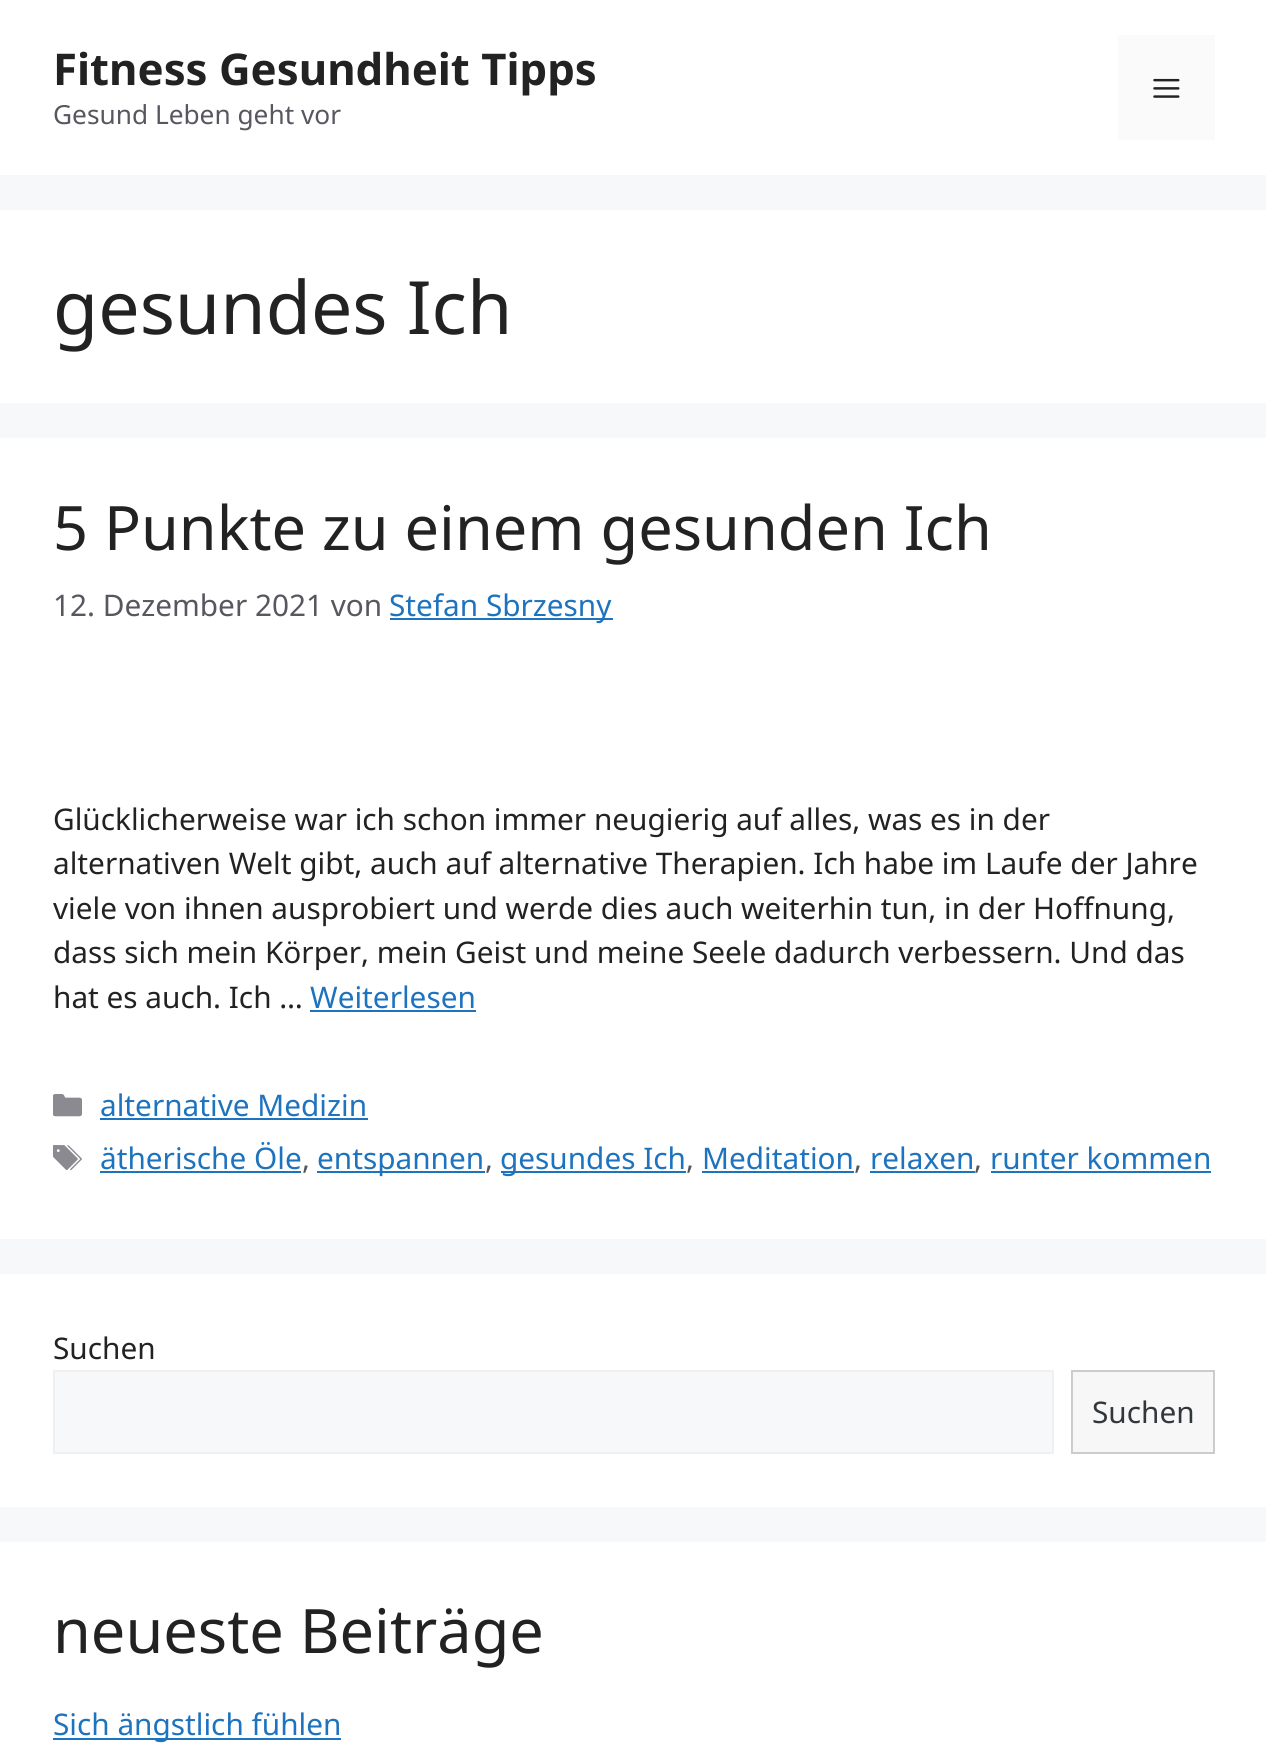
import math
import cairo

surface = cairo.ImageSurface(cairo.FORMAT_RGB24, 1266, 1754)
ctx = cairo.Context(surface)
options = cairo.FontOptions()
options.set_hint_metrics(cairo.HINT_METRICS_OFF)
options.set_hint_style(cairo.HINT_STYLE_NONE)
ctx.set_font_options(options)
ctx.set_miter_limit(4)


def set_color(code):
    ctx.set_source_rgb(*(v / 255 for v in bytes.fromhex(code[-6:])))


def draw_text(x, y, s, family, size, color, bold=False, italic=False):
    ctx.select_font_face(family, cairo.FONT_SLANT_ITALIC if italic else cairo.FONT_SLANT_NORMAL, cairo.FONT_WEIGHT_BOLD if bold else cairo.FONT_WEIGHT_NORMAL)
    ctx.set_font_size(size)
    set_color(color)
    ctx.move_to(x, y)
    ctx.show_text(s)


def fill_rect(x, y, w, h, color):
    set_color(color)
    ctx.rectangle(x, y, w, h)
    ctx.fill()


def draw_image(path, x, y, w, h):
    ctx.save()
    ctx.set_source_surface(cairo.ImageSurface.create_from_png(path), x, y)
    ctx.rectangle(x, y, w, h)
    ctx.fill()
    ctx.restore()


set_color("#f7f8f9")
ctx.paint()
fill_rect(0, 0, 1266, 175, "#ffffff")
draw_text(53, 85, "Fitness Gesundheit Tipps", "Noto Sans", 43.75, "#222222", bold=True)
draw_text(53, 124, "Gesund Leben geht vor", "Noto Sans", 26.25, "#575760")
fill_rect(1118, 35, 97, 105, "#fafafa")
draw_image("assets/img1.png", 1153, 78, 27, 20)
fill_rect(0, 210, 1266, 193, "#ffffff")
draw_text(53, 334, "gesundes Ich", "Noto Sans", 73.5, "#222222")
fill_rect(0, 438, 1266, 801, "#ffffff")
draw_text(53, 550, "5 Punkte zu einem gesunden Ich", "Noto Sans", 61.25, "#222222")
draw_text(53, 616, "12. Dezember 2021 von", "Noto Sans", 29.75, "#575760")
fill_rect(390, 618, 223, 2, "#1e73be")
draw_text(389, 616, "Stefan Sbrzesny", "Noto Sans", 29.75, "#1e73be")
draw_text(53, 830, "Glücklicherweise war ich schon immer neugierig auf alles, was es in der", "Noto Sans", 29.75, "#222222")
draw_text(53, 874, "alternativen Welt gibt, auch auf alternative Therapien. Ich habe im Laufe der Jahre", "Noto Sans", 29.75, "#222222")
draw_text(53, 919, "viele von ihnen ausprobiert und werde dies auch weiterhin tun, in der Hoffnung,", "Noto Sans", 29.75, "#222222")
draw_text(53, 963, "dass sich mein Körper, mein Geist und meine Seele dadurch verbessern. Und das", "Noto Sans", 29.75, "#222222")
draw_text(53, 1008, "hat es auch. Ich …", "Noto Sans", 29.75, "#222222")
draw_text(310, 1008, "Weiterlesen", "Noto Sans", 29.75, "#1e73be")
fill_rect(310, 1010, 166, 2, "#1e73be")
draw_image("assets/img2.png", 53, 1094, 29, 23)
draw_text(100, 1116, "alternative Medizin", "Noto Sans", 29.75, "#1e73be")
fill_rect(100, 1118, 268, 2, "#1e73be")
draw_image("assets/img3.png", 53, 1145, 29, 26)
draw_text(100, 1169, "ätherische Öle", "Noto Sans", 29.75, "#1e73be")
fill_rect(100, 1171, 201, 2, "#1e73be")
draw_text(302, 1169, ",", "Noto Sans", 29.75, "#575760")
fill_rect(317, 1171, 168, 2, "#1e73be")
draw_text(317, 1169, "entspannen", "Noto Sans", 29.75, "#1e73be")
draw_text(485, 1169, ",", "Noto Sans", 29.75, "#575760")
fill_rect(501, 1171, 185, 2, "#1e73be")
draw_text(500, 1169, "gesundes Ich", "Noto Sans", 29.75, "#1e73be")
draw_text(686, 1169, ",", "Noto Sans", 29.75, "#575760")
draw_text(702, 1169, "Meditation", "Noto Sans", 29.75, "#1e73be")
fill_rect(702, 1171, 152, 2, "#1e73be")
draw_text(854, 1169, ",", "Noto Sans", 29.75, "#575760")
draw_text(870, 1169, "relaxen", "Noto Sans", 29.75, "#1e73be")
fill_rect(870, 1171, 105, 2, "#1e73be")
draw_text(974, 1169, ",", "Noto Sans", 29.75, "#575760")
draw_text(990, 1169, "runter kommen", "Noto Sans", 29.75, "#1e73be")
fill_rect(991, 1171, 220, 2, "#1e73be")
fill_rect(0, 1274, 1266, 233, "#ffffff")
draw_text(53, 1359, "Suchen", "Noto Sans", 29.75, "#222222")
set_color("#f7f8f9")
ctx.rectangle(54, 1371, 999, 82)
ctx.fill_preserve()
set_color("#f0f0f0")
ctx.stroke()
set_color("#f7f7f7")
ctx.rectangle(1072, 1371, 142, 82)
ctx.fill_preserve()
set_color("#cccccc")
ctx.stroke()
draw_text(1092, 1423, "Suchen", "Noto Sans", 29.75, "#32373c")
fill_rect(0, 1542, 1266, 212, "#ffffff")
draw_text(53, 1653, "neueste Beiträge", "Noto Sans", 61.25, "#222222")
fill_rect(53, 1738, 288, 2, "#1e73be")
draw_text(53, 1735, "Sich ängstlich fühlen", "Noto Sans", 29.75, "#1e73be")
surface.write_to_png("output.png")
